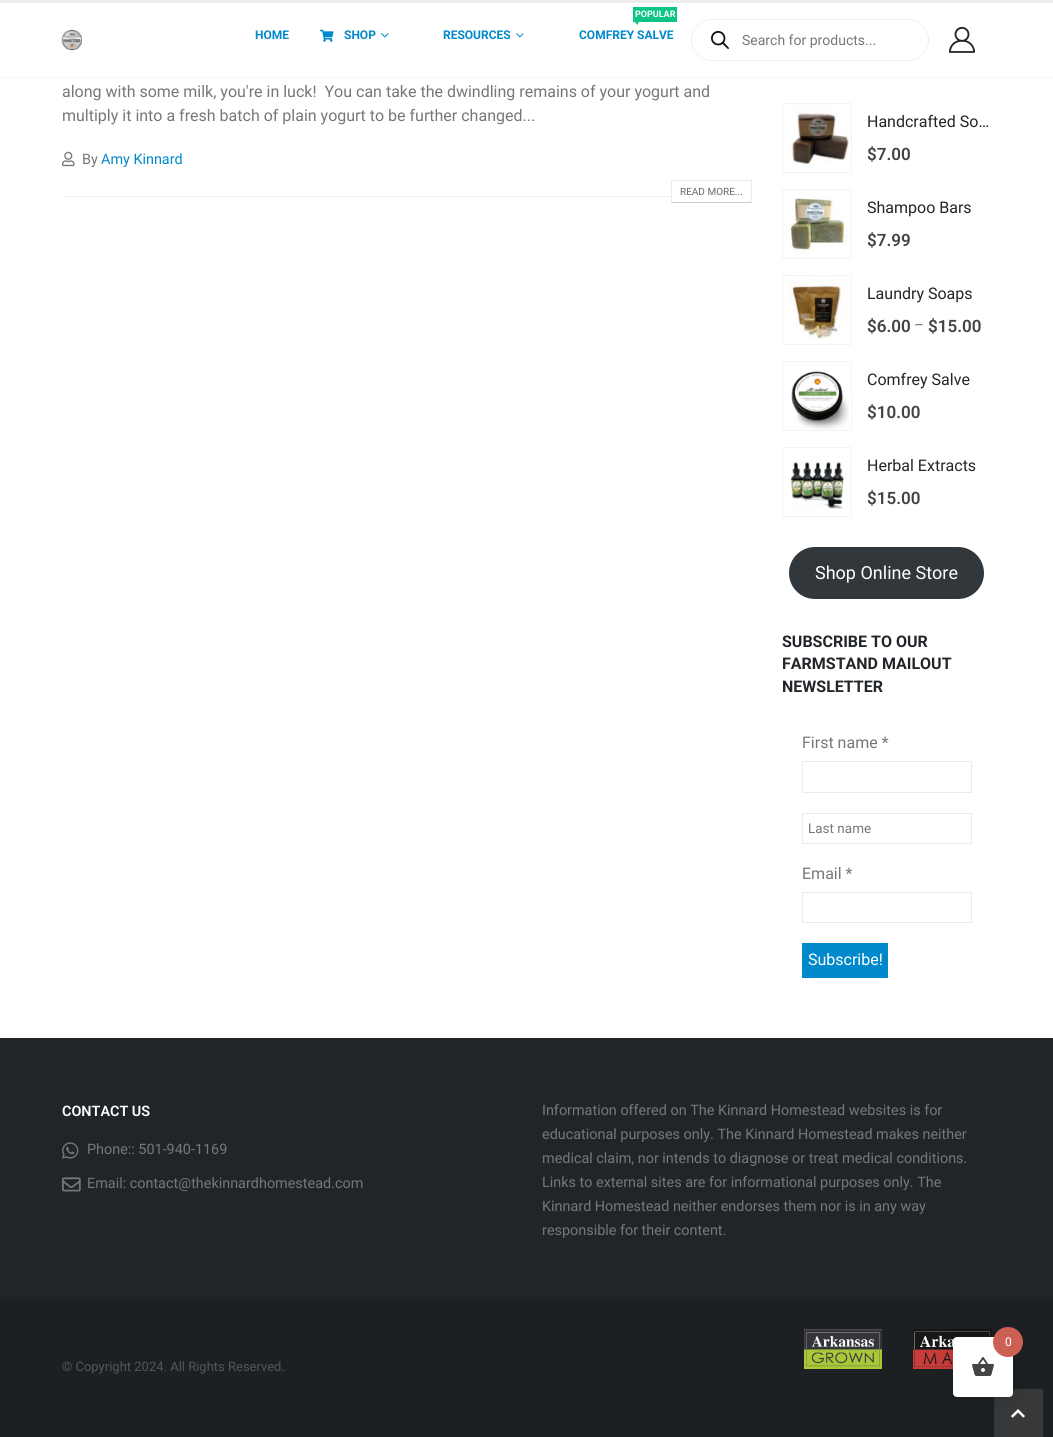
import math
import cairo

surface = cairo.ImageSurface(cairo.FORMAT_RGB24, 1053, 1437)
ctx = cairo.Context(surface)
options = cairo.FontOptions()
options.set_hint_metrics(cairo.HINT_METRICS_OFF)
options.set_hint_style(cairo.HINT_STYLE_NONE)
ctx.set_font_options(options)
ctx.set_miter_limit(4)


def set_color(code):
    ctx.set_source_rgb(*(v / 255 for v in bytes.fromhex(code[-6:])))


def draw_text(x, y, s, family, size, color, bold=False, italic=False):
    ctx.select_font_face(family, cairo.FONT_SLANT_ITALIC if italic else cairo.FONT_SLANT_NORMAL, cairo.FONT_WEIGHT_BOLD if bold else cairo.FONT_WEIGHT_NORMAL)
    ctx.set_font_size(size)
    set_color(color)
    ctx.move_to(x, y)
    ctx.show_text(s)


def fill_rect(x, y, w, h, color):
    set_color(color)
    ctx.rectangle(x, y, w, h)
    ctx.fill()


def rounded_rect(x, y, w, h, r):
    ctx.new_sub_path()
    for i, (u, v) in enumerate([(x + w - r, y + h - r), (x + r, y + h - r), (x + r, y + r), (x + w - r, y + r)]):
        ctx.arc(u, v, r, i * math.pi / 2, (i + 1) * math.pi / 2)
    ctx.close_path()


def draw_shadow(x, y, w, h, r, blur, alpha):
    ctx.push_group_with_content(cairo.CONTENT_ALPHA)
    ctx.set_operator(cairo.OPERATOR_SOURCE)
    for i in range(15, -16, -2):
        e = blur * i / 6
        if min(w, h) + 2 * e > 0:
            ctx.set_source_rgba(0, 0, 0, alpha * math.erfc((i - 1) / 8.5) / 2)
            rounded_rect(x - e, y - e, w + 2 * e, h + 2 * e, max(0, min(r + e + blur * .6, min(w, h) / 2 + e)))
            ctx.fill()
    ctx.mask(ctx.pop_group())


def draw_image(path, x, y, w, h):
    ctx.save()
    ctx.set_source_surface(cairo.ImageSurface.create_from_png(path), x, y)
    ctx.rectangle(x, y, w, h)
    ctx.fill()
    ctx.restore()


set_color("#ffffff")
ctx.paint()
set_color("#000000")
draw_shadow(0, 0, 1053, 77, 0, 1.5, 0.06)
fill_rect(0, 3, 1053, 74, "#ffffff")
fill_rect(0, 0, 1053, 3, "#ededed")
draw_image("assets/img1.png", 61, 30, 21, 20)
draw_text(255, 39, "HOME", "Roboto", 12, "#0088cc", bold=True)
draw_image("assets/img2.png", 320, 29, 14, 13)
draw_text(344, 39, "SHOP", "Roboto", 12, "#0088cc", bold=True)
draw_image("assets/img3.png", 381, 33, 8, 5)
draw_text(443, 39, "RESOURCES", "Roboto", 12, "#0088cc", bold=True)
draw_image("assets/img3.png", 516, 33, 8, 5)
fill_rect(633, 7, 44, 15, "#0cc485")
draw_text(635, 17, "POPULAR", "Roboto", 9, "#ffffff", bold=True)
set_color("#0cc485")
ctx.new_path()
ctx.move_to(635, 22)
ctx.line_to(639, 22)
ctx.line_to(637, 25)
ctx.close_path()
ctx.fill()
draw_text(579, 39, "COMFREY SALVE", "Roboto", 12, "#0088cc", bold=True)
rounded_rect(691.5, 19.5, 237, 41, 20.5)
set_color("#eeeeee")
ctx.set_line_width(1)
ctx.stroke()
set_color("#ffffff")
rounded_rect(692, 20, 236, 40, 20)
ctx.fill()
draw_image("assets/img4.png", 711, 31, 18, 18)
draw_text(742, 45, "Search for products...", "Roboto", 14, "#777777")
draw_image("assets/img5.png", 949, 26, 26, 27)
fill_rect(62, 196, 609, 1, "#f0f0f0")
draw_text(62, 97, "along with some milk, you're in luck!  You can take the dwindling remains of your yogurt and", "Roboto", 16, "#777777")
draw_text(62, 121, "multiply it into a fresh batch of plain yogurt to be further changed...", "Roboto", 16, "#777777")
draw_image("assets/img6.png", 62, 151, 13, 16)
draw_text(82, 164, "By", "Roboto", 14.4, "#777777")
draw_text(101, 164, "Amy Kinnard", "Roboto", 14.4, "#0088cc")
set_color("#ebebeb")
ctx.new_path()
ctx.move_to(671, 180)
ctx.line_to(752, 180)
ctx.line_to(751, 181)
ctx.line_to(672, 181)
ctx.close_path()
ctx.fill()
ctx.set_source_rgba(0, 0, 0, 0.08)
ctx.new_path()
ctx.move_to(752, 180)
ctx.line_to(752, 203)
ctx.line_to(751, 202)
ctx.line_to(751, 181)
ctx.close_path()
ctx.fill()
ctx.set_source_rgba(0, 0, 0, 0.2)
ctx.new_path()
ctx.move_to(752, 203)
ctx.line_to(671, 203)
ctx.line_to(672, 202)
ctx.line_to(751, 202)
ctx.close_path()
ctx.fill()
ctx.set_source_rgba(0, 0, 0, 0.08)
ctx.new_path()
ctx.move_to(671, 203)
ctx.line_to(671, 180)
ctx.line_to(672, 181)
ctx.line_to(672, 202)
ctx.close_path()
ctx.fill()
draw_text(680, 195, "READ MORE...", "Roboto", 10, "#666666")
ctx.rectangle(782.5, 103.5, 69, 69)
set_color("#f4f4f4")
ctx.stroke()
draw_image("assets/img7.png", 789, 104, 60, 64)
draw_text(867, 127, "Handcrafted So…", "Roboto", 16, "#222529")
draw_text(867, 160, "$7.00", "Roboto SemiBold", 17, "#444444")
ctx.rectangle(782.5, 189.5, 69, 69)
set_color("#f4f4f4")
ctx.stroke()
draw_image("assets/img8.png", 783, 196, 68, 58)
draw_text(867, 213, "Shampoo Bars", "Roboto", 16, "#222529")
draw_text(867, 246, "$7.99", "Roboto SemiBold", 17, "#444444")
ctx.rectangle(782.5, 275.5, 69, 69)
set_color("#f4f4f4")
ctx.stroke()
draw_image("assets/img9.png", 787, 276, 60, 65)
draw_text(867, 299, "Laundry Soaps", "Roboto", 16, "#222529")
draw_text(867, 332, "$6.00", "Roboto SemiBold", 17, "#444444")
draw_text(914, 330, "–", "Roboto", 15, "#777777")
draw_text(928, 332, "$15.00", "Roboto SemiBold", 17, "#444444")
ctx.rectangle(782.5, 361.5, 69, 69)
set_color("#f4f4f4")
ctx.stroke()
draw_image("assets/img10.png", 791, 371, 58, 59)
draw_text(867, 385, "Comfrey Salve", "Roboto", 16, "#222529")
draw_text(867, 418, "$10.00", "Roboto SemiBold", 17, "#444444")
ctx.rectangle(782.5, 447.5, 69, 69)
set_color("#f4f4f4")
ctx.stroke()
draw_image("assets/img11.png", 790, 461, 61, 48)
draw_text(867, 471, "Herbal Extracts", "Roboto", 16, "#222529")
draw_text(867, 504, "$15.00", "Roboto SemiBold", 17, "#444444")
set_color("#32373c")
rounded_rect(789, 547, 195, 52, 26)
ctx.fill()
draw_text(815, 579, "Shop Online Store", "Roboto", 18, "#ffffff")
draw_text(782, 647, "SUBSCRIBE TO OUR", "Roboto", 16, "#222529", bold=True)
draw_text(782, 669, "FARMSTAND MAILOUT", "Roboto", 16, "#222529", bold=True)
draw_text(782, 692, "NEWSLETTER", "Roboto", 16, "#222529", bold=True)
draw_text(802, 748, "First name *", "Roboto", 16, "#777777")
ctx.rectangle(802.5, 761.5, 169, 31)
set_color("#ebebeb")
ctx.stroke()
ctx.rectangle(802.5, 813.5, 169, 30)
ctx.stroke()
draw_text(808, 833, "Last name", "Roboto", 13.5, "#777777")
draw_text(802, 879, "Email *", "Roboto", 16, "#777777")
ctx.rectangle(802.5, 892.5, 169, 30)
set_color("#ebebeb")
ctx.stroke()
fill_rect(802, 943, 86, 35, "#0088cc")
draw_text(808, 965, "Subscribe!", "Roboto", 16, "#ffffff")
fill_rect(0, 1038, 1053, 259, "#212529")
draw_text(62, 1116, "CONTACT US", "Roboto SemiBold", 14.4, "#ffffff")
draw_image("assets/img12.png", 62, 1142, 17, 17)
draw_text(87, 1154, "Phone:: 501-940-1169", "Roboto", 14.4, "#777777")
draw_image("assets/img13.png", 62, 1177, 19, 15)
draw_text(87, 1188, "Email: contact@thekinnardhomestead.com", "Roboto", 14.4, "#777777")
draw_text(542, 1115, "Information offered on The Kinnard Homestead websites is for", "Roboto", 14.4, "#777777")
draw_text(542, 1139, "educational purposes only. The Kinnard Homestead makes neither", "Roboto", 14.4, "#777777")
draw_text(542, 1163, "medical claim, nor intends to diagnose or treat medical conditions.", "Roboto", 14.4, "#777777")
draw_text(542, 1187, "Links to external sites are for informational purposes only. The", "Roboto", 14.4, "#777777")
draw_text(542, 1211, "Kinnard Homestead neither endorses them nor is in any way", "Roboto", 14.4, "#777777")
draw_text(542, 1235, "responsible for their content.", "Roboto", 14.4, "#777777")
fill_rect(0, 1297, 1053, 140, "#1c2023")
draw_text(62, 1371, "© Copyright 2024. All Rights Reserved.", "Roboto", 13, "#555555")
draw_image("assets/img14.png", 804, 1329, 78, 40)
draw_image("assets/img15.png", 913, 1329, 79, 40)
fill_rect(994, 1389, 49, 48, "#373839")
draw_image("assets/img17.png", 1011, 1409, 14, 9)
set_color("#000000")
draw_shadow(953, 1337, 60, 60, 4, 10, 0.15)
set_color("#ffffff")
rounded_rect(953, 1337, 60, 60, 4)
ctx.fill()
set_color("#cc6055")
ctx.arc(1008, 1342, 15, 0, 2 * math.pi)
ctx.fill()
draw_text(1005, 1346, "0", "Roboto", 12, "#ffffff")
draw_image("assets/img16.png", 972, 1357, 22, 19)
surface.write_to_png("output.png")
